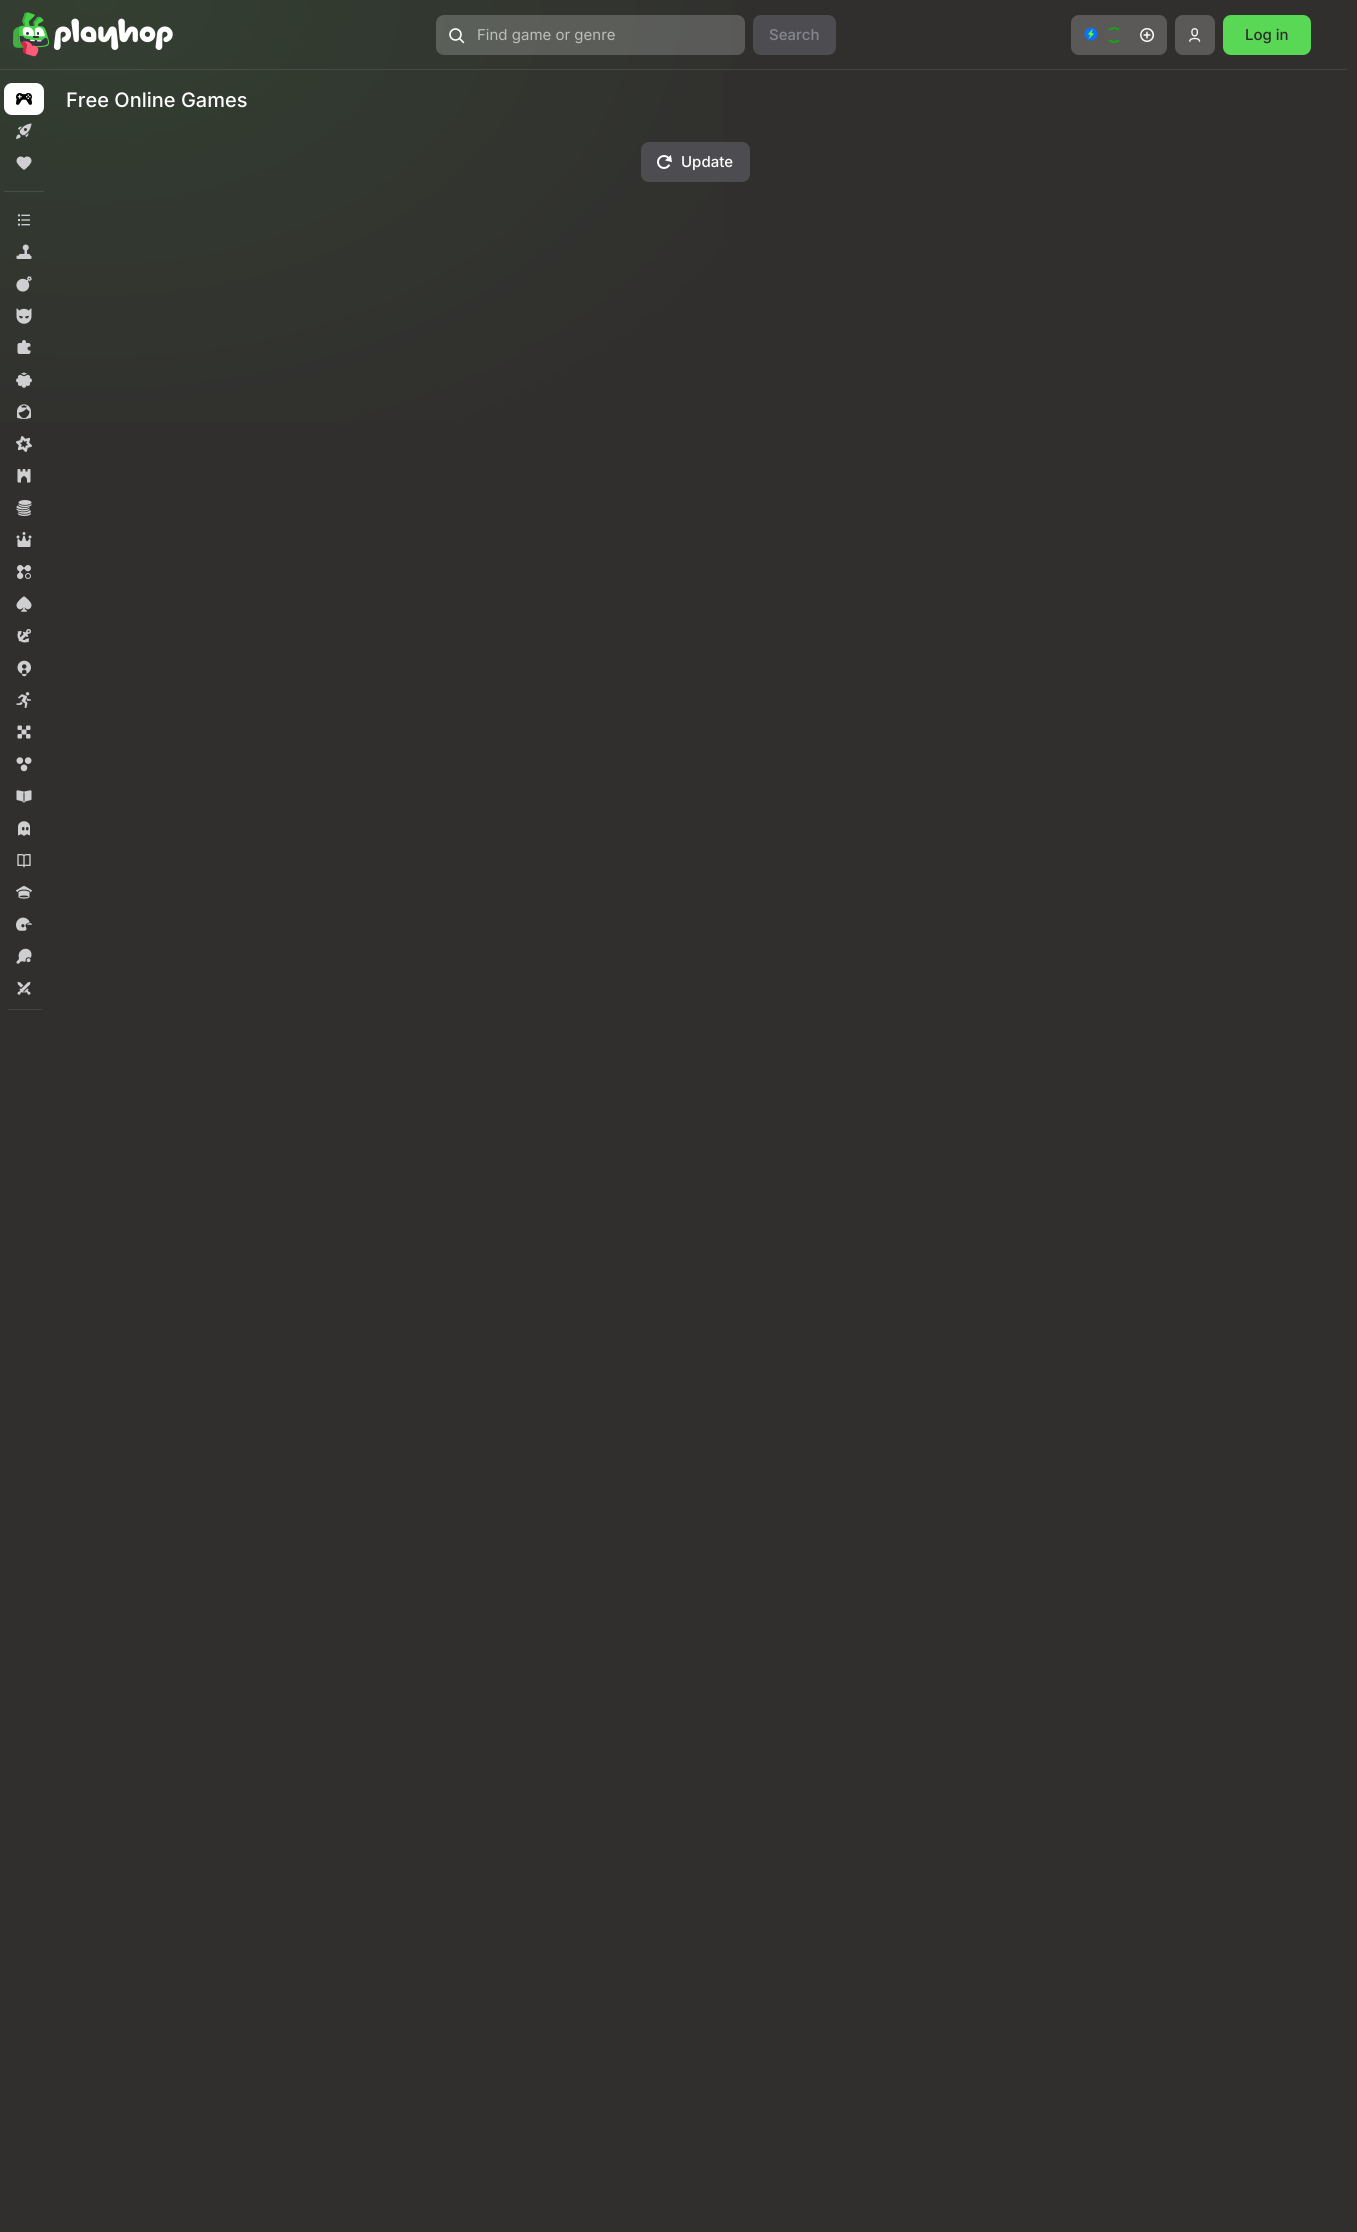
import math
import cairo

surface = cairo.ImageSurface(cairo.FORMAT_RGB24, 1357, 2232)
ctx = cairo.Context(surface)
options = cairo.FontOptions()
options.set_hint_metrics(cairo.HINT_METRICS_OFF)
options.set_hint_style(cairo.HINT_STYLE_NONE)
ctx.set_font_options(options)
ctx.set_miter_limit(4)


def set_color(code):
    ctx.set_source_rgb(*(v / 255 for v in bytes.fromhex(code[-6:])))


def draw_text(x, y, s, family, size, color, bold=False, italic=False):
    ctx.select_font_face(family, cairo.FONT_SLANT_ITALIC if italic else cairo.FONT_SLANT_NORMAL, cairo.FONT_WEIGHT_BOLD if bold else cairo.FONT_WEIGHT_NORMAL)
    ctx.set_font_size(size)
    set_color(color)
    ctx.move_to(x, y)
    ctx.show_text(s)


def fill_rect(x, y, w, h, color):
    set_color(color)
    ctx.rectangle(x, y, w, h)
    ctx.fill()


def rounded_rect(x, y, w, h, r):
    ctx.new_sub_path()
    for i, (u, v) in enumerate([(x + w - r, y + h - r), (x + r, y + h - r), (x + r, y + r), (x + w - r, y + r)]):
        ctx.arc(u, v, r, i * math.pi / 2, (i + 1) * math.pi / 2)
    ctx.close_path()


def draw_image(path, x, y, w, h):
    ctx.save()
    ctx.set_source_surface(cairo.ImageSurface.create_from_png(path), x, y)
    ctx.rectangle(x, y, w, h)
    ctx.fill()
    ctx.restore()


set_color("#312f2e")
ctx.paint()
gradient = cairo.RadialGradient(0, 0, 0, 0, 0, 1)
gradient.set_matrix(cairo.Matrix(1 / 757, 0, 0, 1 / 500, -1 * 95 / 757, -1 * 0 / 500))
gradient.add_color_stop_rgba(0, 0.2, 0.247, 0.192, 1)
gradient.add_color_stop_rgba(1, 0.192, 0.184, 0.18, 1)
ctx.set_source(gradient)
ctx.rectangle(0, 0, 732, 70)
ctx.fill()
ctx.set_source_rgba(1, 1, 1, 0.1)
ctx.rectangle(0, 69, 1347, 1)
ctx.fill()
draw_image("assets/img1.png", 13, 12, 160, 45)
ctx.set_source_rgba(1, 1, 1, 0.2)
rounded_rect(436, 15, 309, 40, 8)
ctx.fill()
draw_image("assets/img2.png", 449, 28, 16, 16)
draw_text(477, 40, "Find game or genre", "Inter", 15, "#bdbebc")
set_color("#4d4d51")
rounded_rect(753, 15, 83, 40, 8)
ctx.fill()
draw_text(769, 40, "Search", "Inter Medium", 15, "#85868b")
set_color("#5a5958")
rounded_rect(1071, 15, 96, 40, 8)
ctx.fill()
draw_image("assets/img3.png", 1084, 27, 14, 14)
ctx.new_path()
ctx.move_to(1109, 30)
ctx.curve_to(1111.5, 27.5, 1116.5, 27.5, 1119, 30)
ctx.move_to(1119, 40)
ctx.curve_to(1116.5, 42.5, 1111.5, 42.5, 1109, 40)
set_color("#13a615")
ctx.stroke()
draw_image("assets/img4.png", 1140, 28, 15, 14)
set_color("#5a5958")
rounded_rect(1175, 15, 40, 40, 8)
ctx.fill()
draw_image("assets/img5.png", 1189, 28, 12, 14)
set_color("#58d854")
rounded_rect(1223, 15, 88, 40, 8)
ctx.fill()
draw_text(1245, 40, "Log in", "Inter Medium", 15, "#2d2d2f")
gradient = cairo.RadialGradient(0, 0, 0, 0, 0, 1)
gradient.set_matrix(cairo.Matrix(1 / 757, 0, 0, 1 / 500, -1 * 95 / 757, -1 * 0 / 500))
gradient.add_color_stop_rgba(0, 0.2, 0.247, 0.192, 1)
gradient.add_color_stop_rgba(1, 0.192, 0.184, 0.18, 1)
ctx.set_source(gradient)
ctx.rectangle(0, 70, 723, 352)
ctx.fill()
set_color("#ffffff")
rounded_rect(4, 83, 40, 32, 8)
ctx.fill()
draw_image("assets/img6.png", 16, 93, 16, 12)
draw_image("assets/img7.png", 16, 123, 16, 16)
draw_image("assets/img8.png", 16, 156, 16, 14)
fill_rect(4, 191, 40, 1, "#474d45")
draw_image("assets/img9.png", 18, 214, 12, 12)
draw_image("assets/img10.png", 16, 244, 16, 15)
draw_image("assets/img11.png", 16, 276, 16, 16)
draw_image("assets/img12.png", 16, 308, 16, 16)
draw_image("assets/img13.png", 17, 340, 14, 14)
draw_image("assets/img14.png", 16, 372, 16, 16)
draw_image("assets/img15.png", 17, 404, 14, 15)
draw_image("assets/img16.png", 16, 436, 16, 16)
draw_image("assets/img17.png", 17, 469, 14, 14)
draw_image("assets/img18.png", 16, 500, 16, 16)
draw_image("assets/img19.png", 16, 532, 16, 15)
draw_image("assets/img20.png", 17, 565, 14, 14)
draw_image("assets/img21.png", 16, 596, 16, 16)
draw_image("assets/img22.png", 17, 629, 14, 14)
draw_image("assets/img23.png", 17, 660, 14, 17)
draw_image("assets/img24.png", 16, 692, 15, 16)
draw_image("assets/img25.png", 17, 725, 14, 14)
draw_image("assets/img26.png", 16, 757, 16, 15)
draw_image("assets/img27.png", 16, 790, 16, 13)
draw_image("assets/img28.png", 18, 821, 12, 15)
draw_image("assets/img29.png", 17, 854, 14, 14)
draw_image("assets/img30.png", 16, 886, 16, 13)
draw_image("assets/img31.png", 16, 917, 16, 14)
draw_image("assets/img32.png", 16, 948, 16, 16)
draw_image("assets/img33.png", 17, 981, 14, 14)
fill_rect(8, 1009, 34, 1, "#464443")
draw_text(66, 107, "Free Online Games", "Inter Medium", 20, "#ffffff")
set_color("#4d4d51")
rounded_rect(641, 142, 109, 40, 8)
ctx.fill()
draw_image("assets/img34.png", 657, 155, 15, 14)
draw_text(681, 167, "Update", "Inter Medium", 15, "#ffffff")
surface.write_to_png("output.png")
